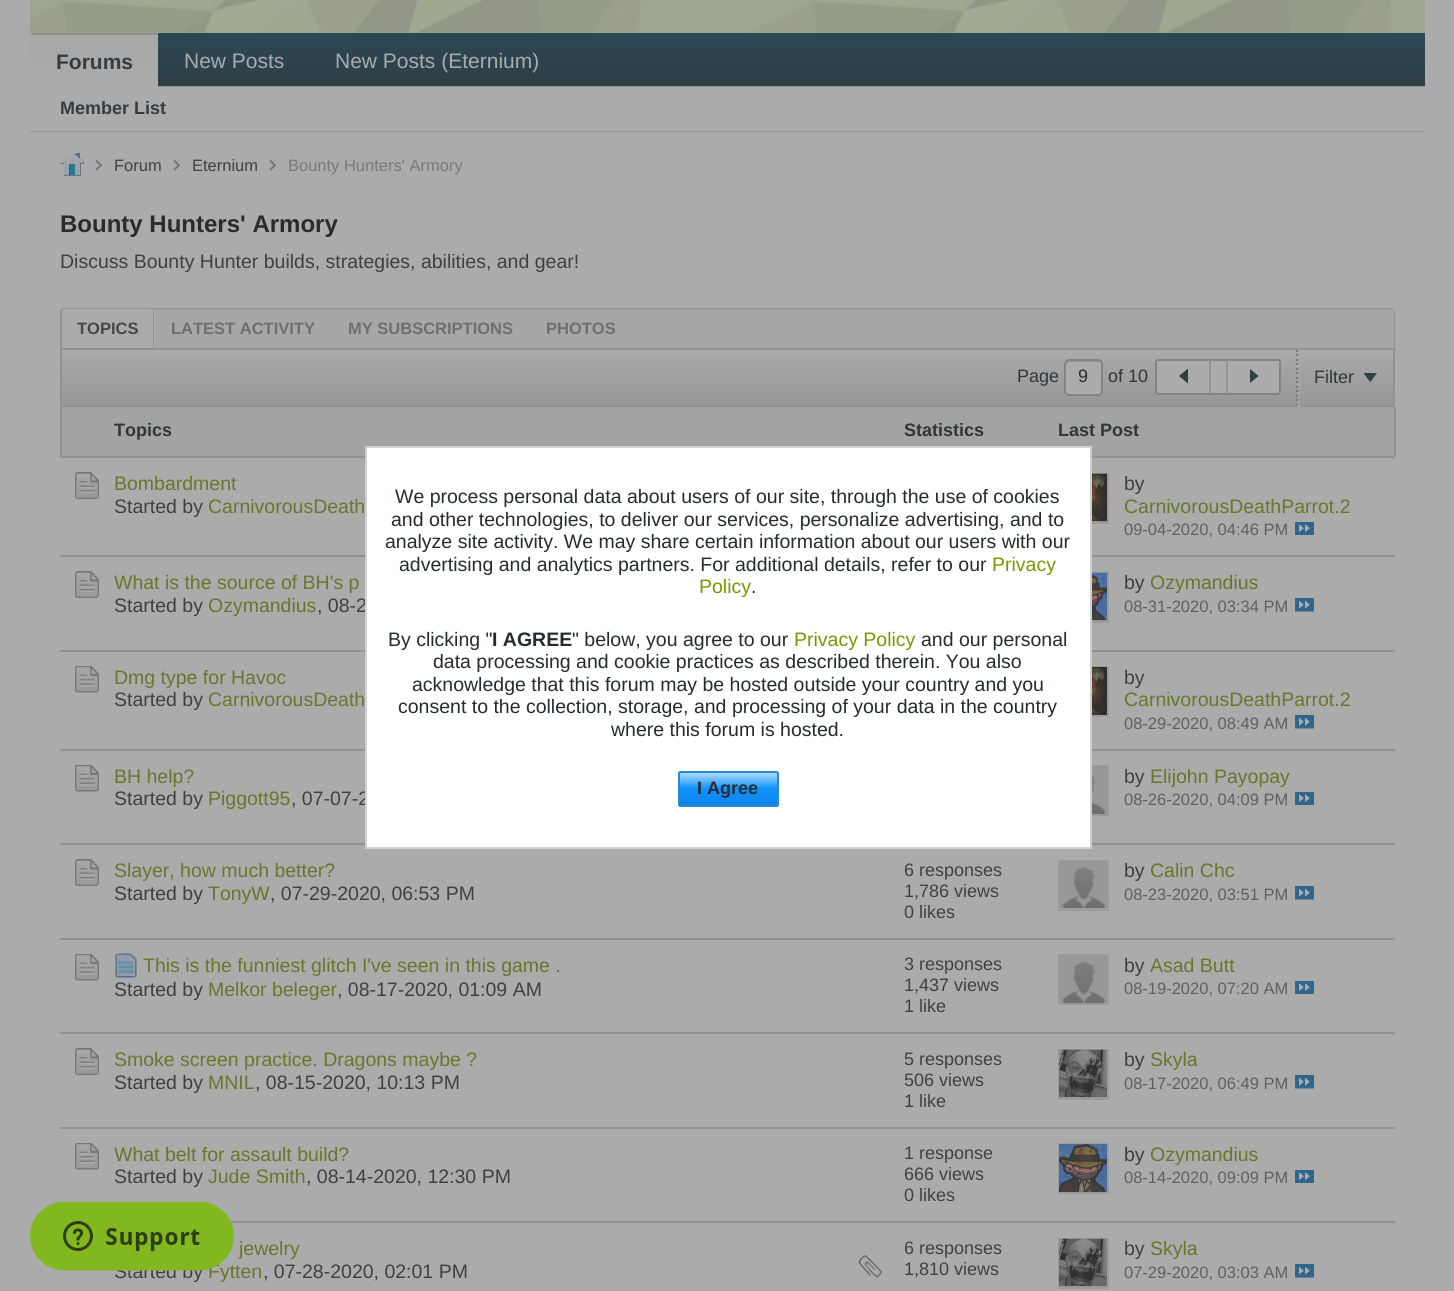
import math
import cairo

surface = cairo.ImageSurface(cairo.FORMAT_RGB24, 1454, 1291)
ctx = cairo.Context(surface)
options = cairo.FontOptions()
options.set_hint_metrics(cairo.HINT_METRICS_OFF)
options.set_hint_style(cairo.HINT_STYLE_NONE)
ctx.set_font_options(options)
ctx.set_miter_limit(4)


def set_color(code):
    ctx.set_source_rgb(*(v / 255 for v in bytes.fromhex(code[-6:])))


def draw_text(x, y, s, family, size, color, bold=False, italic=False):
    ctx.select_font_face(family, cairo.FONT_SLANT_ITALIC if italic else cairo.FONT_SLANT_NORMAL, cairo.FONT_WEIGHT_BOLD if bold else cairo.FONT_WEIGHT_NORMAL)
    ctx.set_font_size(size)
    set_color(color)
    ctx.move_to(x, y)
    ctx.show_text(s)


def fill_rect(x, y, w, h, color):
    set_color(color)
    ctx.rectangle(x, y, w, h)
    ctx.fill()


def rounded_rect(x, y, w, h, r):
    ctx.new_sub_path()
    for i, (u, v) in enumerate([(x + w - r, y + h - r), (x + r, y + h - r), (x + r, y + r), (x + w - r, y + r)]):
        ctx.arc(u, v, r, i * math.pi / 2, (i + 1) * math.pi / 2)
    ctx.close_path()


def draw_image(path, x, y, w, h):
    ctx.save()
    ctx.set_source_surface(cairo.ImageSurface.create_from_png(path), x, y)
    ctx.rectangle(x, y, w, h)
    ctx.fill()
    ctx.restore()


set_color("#ababab")
ctx.paint()
fill_rect(30, 32, 1395, 1, "#9ba881")
draw_image("assets/img1.png", 30, 0, 1395, 33)
gradient = cairo.LinearGradient(728, 33, 728, 86)
gradient.add_color_stop_rgba(0, 0.173, 0.282, 0.333, 1)
gradient.add_color_stop_rgba(1, 0.18, 0.247, 0.271, 1)
ctx.set_source(gradient)
ctx.rectangle(30, 33, 1395, 53)
ctx.fill()
fill_rect(158, 86, 1267, 1, "#8d8f8f")
gradient = cairo.LinearGradient(94, -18, 94, 35)
gradient.add_color_stop_rgba(0, 0.655, 0.655, 0.655, 1)
gradient.add_color_stop_rgba(1, 0.671, 0.671, 0.671, 1)
ctx.set_source(gradient)
ctx.new_path()
ctx.move_to(31.5, 33)
ctx.line_to(156.5, 33)
ctx.curve_to(157.5, 33, 158, 33.5, 158, 34.5)
ctx.line_to(158, 35)
ctx.line_to(30, 35)
ctx.line_to(30, 34.5)
ctx.curve_to(30, 33.5, 30.5, 33, 31.5, 33)
ctx.close_path()
ctx.fill()
gradient = cairo.LinearGradient(94, 34, 94, 87)
gradient.add_color_stop_rgba(0, 0.655, 0.655, 0.655, 1)
gradient.add_color_stop_rgba(1, 0.671, 0.671, 0.671, 1)
ctx.set_source(gradient)
ctx.rectangle(30, 35, 128, 51)
ctx.fill()
fill_rect(32, 33, 126, 2, "#8d8f8f")
draw_text(56, 69, "Forums", "Liberation Sans", 21, "#353d43", bold=True)
draw_text(184, 68, "New Posts", "Liberation Sans", 21, "#ababab")
draw_text(335, 68, "New Posts (Eternium)", "Liberation Sans", 21, "#ababab")
fill_rect(30, 131, 1395, 1, "#959696")
draw_text(60, 114, "Member List", "Liberation Sans", 18, "#353d43", bold=True)
draw_image("assets/img2.png", 60, 153, 24, 23)
draw_image("assets/img3.png", 95, 160, 7, 11)
draw_text(114, 171, "Forum", "Liberation Sans", 16.5, "#3e4143")
draw_image("assets/img3.png", 173, 160, 7, 11)
draw_text(192, 171, "Eternium", "Liberation Sans", 16.5, "#3e4143")
draw_image("assets/img3.png", 269, 160, 7, 11)
draw_text(288, 171, "Bounty Hunters' Armory", "Liberation Sans", 16.5, "#7a7a7a")
draw_text(60, 232, "Bounty Hunters' Armory", "Liberation Sans", 24, "#2b2b2b", bold=True)
draw_text(60, 268, "Discuss Bounty Hunter builds, strategies, abilities, and gear!", "Liberation Sans", 19.5, "#3e4143")
set_color("#a7a7a7")
ctx.new_path()
ctx.move_to(65, 308)
ctx.line_to(1390, 308)
ctx.curve_to(1393, 308, 1395, 310, 1395, 313)
ctx.line_to(1395, 348)
ctx.line_to(60, 348)
ctx.line_to(60, 313)
ctx.curve_to(60, 310, 62, 308, 65, 308)
ctx.close_path()
ctx.fill()
set_color("#909294")
ctx.set_fill_rule(cairo.FILL_RULE_EVEN_ODD)
ctx.new_path()
ctx.move_to(64, 308)
ctx.line_to(1390, 308)
ctx.curve_to(1393, 308, 1395, 310, 1395, 312)
ctx.line_to(1395, 348)
ctx.line_to(60, 348)
ctx.line_to(60, 312)
ctx.curve_to(60, 310, 62, 308, 64, 308)
ctx.close_path()
ctx.move_to(64, 309)
ctx.line_to(1390, 309)
ctx.curve_to(1392, 309, 1394, 310, 1394, 312)
ctx.line_to(1394, 348)
ctx.line_to(62, 348)
ctx.line_to(62, 312)
ctx.curve_to(62, 310, 63, 309, 64, 309)
ctx.close_path()
ctx.fill()
set_color("#ababab")
ctx.new_path()
ctx.move_to(65, 308)
ctx.line_to(150, 308)
ctx.curve_to(153, 308, 155, 310, 155, 313)
ctx.line_to(155, 348)
ctx.line_to(60, 348)
ctx.line_to(60, 313)
ctx.curve_to(60, 310, 62, 308, 65, 308)
ctx.close_path()
ctx.fill()
set_color("#909294")
ctx.new_path()
ctx.move_to(64, 308)
ctx.line_to(150, 308)
ctx.curve_to(152, 308, 154, 310, 154, 312)
ctx.line_to(154, 348)
ctx.line_to(60, 348)
ctx.line_to(60, 312)
ctx.curve_to(60, 310, 62, 308, 64, 308)
ctx.close_path()
ctx.move_to(64, 309)
ctx.line_to(150, 309)
ctx.curve_to(152, 309, 153, 310, 153, 312)
ctx.line_to(153, 348)
ctx.line_to(62, 348)
ctx.line_to(62, 312)
ctx.curve_to(62, 310, 63, 309, 64, 309)
ctx.close_path()
ctx.fill()
draw_text(77, 334, "TOPICS", "Liberation Sans", 16.5, "#45484a", bold=True)
draw_text(171, 334, "LATEST ACTIVITY", "Liberation Sans", 16.5, "#6d6f70", bold=True)
draw_text(348, 334, "MY SUBSCRIPTIONS", "Liberation Sans", 16.5, "#6d6f70", bold=True)
draw_text(546, 334, "PHOTOS", "Liberation Sans", 16.5, "#6d6f70", bold=True)
gradient = cairo.LinearGradient(728, 349, 728, 405)
gradient.add_color_stop_rgba(0, 0.667, 0.667, 0.671, 1)
gradient.add_color_stop_rgba(1, 0.588, 0.592, 0.596, 1)
ctx.set_source(gradient)
ctx.rectangle(62, 353, 1331, 52)
ctx.fill()
ctx.rectangle(61, 349, 1333, 57)
set_color("#909294")
ctx.stroke()
draw_text(1017, 382, "Page", "Liberation Sans", 18, "#303639")
set_color("#ababab")
rounded_rect(1064, 359, 39, 37, 5)
ctx.fill()
set_color("#969696")
ctx.set_fill_rule(cairo.FILL_RULE_WINDING)
ctx.new_path()
ctx.move_to(1070, 362)
ctx.line_to(1100, 362)
ctx.line_to(1101, 362.5)
ctx.curve_to(1100.5, 361, 1099.5, 360, 1098, 360)
ctx.line_to(1068, 360)
ctx.curve_to(1066.5, 360, 1065, 361.5, 1065, 363)
ctx.line_to(1065, 392)
ctx.curve_to(1065, 393, 1065.5, 394, 1066.5, 394.5)
ctx.line_to(1066, 393)
ctx.line_to(1066, 363.5)
ctx.curve_to(1066.5, 362.5, 1069, 362, 1070, 362)
ctx.close_path()
ctx.fill()
rounded_rect(1065, 360, 37, 35, 4)
set_color("#828586")
ctx.stroke()
draw_text(1078, 382, "9", "Liberation Sans", 18, "#2b2b2b")
draw_text(1108, 382, "of 10", "Liberation Sans", 18, "#303639")
set_color("#ababab")
rounded_rect(1156, 360, 124, 34, 2)
ctx.fill_preserve()
set_color("#828586")
ctx.stroke()
fill_rect(1209, 360, 2, 33, "#929495")
draw_image("assets/img4.png", 1179, 369, 9, 15)
fill_rect(1226, 360, 2, 33, "#929495")
draw_image("assets/img5.png", 1250, 369, 9, 14)
draw_image("assets/img6.png", 1296, 350, 2, 55)
draw_image("assets/img7.png", 1298, 356, 2, 51)
draw_text(1314, 383, "Filter", "Liberation Sans", 18, "#303639")
draw_image("assets/img8.png", 1364, 373, 13, 9)
fill_rect(62, 407, 1332, 49, "#a3a3a3")
fill_rect(60, 407, 2, 49, "#909294")
draw_text(114, 436, "Topics", "Liberation Sans", 18, "#303639", bold=True)
draw_text(904, 436, "Statistics", "Liberation Sans", 18, "#303639", bold=True)
fill_rect(1394, 407, 2, 49, "#909294")
draw_text(1058, 436, "Last Post", "Liberation Sans", 18, "#303639", bold=True)
fill_rect(60, 456, 305, 2, "#909294")
draw_image("assets/img9.png", 75, 472, 24, 27)
draw_text(114, 490, "Bombardment", "Liberation Sans", 19.5, "#66782c")
draw_text(114, 513, "Started by", "Liberation Sans", 19.5, "#3e4143")
draw_text(208, 513, "CarnivorousDeath", "Liberation Sans", 19.5, "#66782c")
fill_rect(1092, 456, 303, 2, "#909294")
ctx.rectangle(1059, 474, 49, 49)
set_color("#9b9b9b")
ctx.stroke()
draw_image("assets/img10.png", 1092, 473, 15, 49)
draw_text(1124, 490, "by", "Liberation Sans", 19.5, "#3e4143")
draw_text(1124, 513, "CarnivorousDeathParrot.2", "Liberation Sans", 19.5, "#66782c")
draw_text(1124, 535, "09-04-2020, 04:46 PM", "Liberation Sans", 16.5, "#5e6062")
draw_image("assets/img11.png", 1295, 522, 19, 13)
fill_rect(60, 555, 305, 2, "#909294")
draw_image("assets/img9.png", 75, 571, 24, 27)
draw_text(114, 589, "What is the source of BH's p", "Liberation Sans", 19.5, "#66782c")
draw_text(114, 612, "Started by", "Liberation Sans", 19.5, "#3e4143")
draw_text(208, 612, "Ozymandius", "Liberation Sans", 19.5, "#66782c")
draw_text(317, 612, ", 08-2", "Liberation Sans", 19.5, "#3e4143")
fill_rect(1092, 555, 303, 2, "#909294")
ctx.rectangle(1059, 573, 49, 49)
set_color("#9b9b9b")
ctx.stroke()
draw_image("assets/img12.png", 1092, 572, 15, 49)
draw_text(1124, 589, "by", "Liberation Sans", 19.5, "#3e4143")
draw_text(1150, 589, "Ozymandius", "Liberation Sans", 19.5, "#66782c")
draw_text(1124, 612, "08-31-2020, 03:34 PM", "Liberation Sans", 16.5, "#5e6062")
draw_image("assets/img13.png", 1295, 598, 19, 14)
fill_rect(60, 650, 305, 2, "#909294")
draw_image("assets/img14.png", 75, 666, 24, 27)
draw_text(114, 684, "Dmg type for Havoc", "Liberation Sans", 19.5, "#66782c")
draw_text(114, 706, "Started by", "Liberation Sans", 19.5, "#3e4143")
draw_text(208, 706, "CarnivorousDeath", "Liberation Sans", 19.5, "#66782c")
fill_rect(1092, 650, 303, 2, "#909294")
ctx.rectangle(1059, 667, 49, 49)
set_color("#9b9b9b")
ctx.stroke()
draw_image("assets/img15.png", 1092, 667, 15, 48)
draw_text(1124, 684, "by", "Liberation Sans", 19.5, "#3e4143")
draw_text(1124, 706, "CarnivorousDeathParrot.2", "Liberation Sans", 19.5, "#66782c")
draw_text(1124, 729, "08-29-2020, 08:49 AM", "Liberation Sans", 16.5, "#5e6062")
draw_image("assets/img13.png", 1295, 715, 19, 14)
fill_rect(60, 749, 305, 2, "#909294")
draw_image("assets/img14.png", 75, 765, 24, 27)
draw_text(114, 783, "BH help?", "Liberation Sans", 19.5, "#66782c")
draw_text(114, 805, "Started by", "Liberation Sans", 19.5, "#3e4143")
draw_text(208, 805, "Piggott95", "Liberation Sans", 19.5, "#66782c")
draw_text(291, 805, ", 07-07-2", "Liberation Sans", 19.5, "#3e4143")
fill_rect(1092, 749, 303, 2, "#909294")
ctx.rectangle(1059, 766, 49, 49)
set_color("#9b9b9b")
ctx.stroke()
draw_image("assets/img16.png", 1092, 766, 15, 48)
draw_text(1124, 783, "by", "Liberation Sans", 19.5, "#3e4143")
draw_text(1150, 783, "Elijohn Payopay", "Liberation Sans", 19.5, "#66782c")
draw_text(1124, 805, "08-26-2020, 04:09 PM", "Liberation Sans", 16.5, "#5e6062")
draw_image("assets/img11.png", 1295, 792, 19, 13)
fill_rect(60, 843, 305, 2, "#909294")
draw_image("assets/img9.png", 75, 859, 24, 27)
draw_text(114, 877, "Slayer, how much better?", "Liberation Sans", 19.5, "#66782c")
draw_text(114, 900, "Started by", "Liberation Sans", 19.5, "#3e4143")
draw_text(208, 900, "TonyW", "Liberation Sans", 19.5, "#66782c")
draw_text(270, 900, ", 07-29-2020, 06:53 PM", "Liberation Sans", 19.5, "#3e4143")
draw_text(904, 876, "6 responses", "Liberation Sans", 18, "#3e4143")
draw_text(904, 897, "1,786 views", "Liberation Sans", 18, "#3e4143")
draw_text(904, 918, "0 likes", "Liberation Sans", 18, "#3e4143")
fill_rect(1092, 843, 303, 2, "#909294")
ctx.rectangle(1059, 861, 49, 49)
set_color("#9b9b9b")
ctx.stroke()
draw_image("assets/img17.png", 1059, 861, 48, 48)
draw_text(1124, 877, "by", "Liberation Sans", 19.5, "#3e4143")
draw_text(1150, 877, "Calin Chc", "Liberation Sans", 19.5, "#66782c")
draw_text(1124, 900, "08-23-2020, 03:51 PM", "Liberation Sans", 16.5, "#5e6062")
draw_image("assets/img13.png", 1295, 886, 19, 14)
fill_rect(60, 938, 54, 2, "#909294")
draw_image("assets/img14.png", 75, 954, 24, 27)
fill_rect(114, 938, 1281, 2, "#909294")
draw_image("assets/img18.png", 115, 953, 22, 25)
draw_text(143, 972, "This is the funniest glitch I've seen in this game .", "Liberation Sans", 19.5, "#66782c")
draw_text(114, 996, "Started by", "Liberation Sans", 19.5, "#3e4143")
draw_text(208, 996, "Melkor beleger", "Liberation Sans", 19.5, "#66782c")
draw_text(337, 996, ", 08-17-2020, 01:09 AM", "Liberation Sans", 19.5, "#3e4143")
draw_text(904, 970, "3 responses", "Liberation Sans", 18, "#3e4143")
draw_text(904, 991, "1,437 views", "Liberation Sans", 18, "#3e4143")
draw_text(904, 1012, "1 like", "Liberation Sans", 18, "#3e4143")
ctx.rectangle(1059, 955, 49, 49)
set_color("#9b9b9b")
ctx.stroke()
draw_image("assets/img19.png", 1059, 955, 48, 48)
draw_text(1124, 972, "by", "Liberation Sans", 19.5, "#3e4143")
draw_text(1150, 972, "Asad Butt", "Liberation Sans", 19.5, "#66782c")
draw_text(1124, 994, "08-19-2020, 07:20 AM", "Liberation Sans", 16.5, "#5e6062")
draw_image("assets/img11.png", 1295, 981, 19, 13)
fill_rect(60, 1032, 54, 2, "#909294")
draw_image("assets/img9.png", 75, 1048, 24, 27)
fill_rect(114, 1032, 1281, 2, "#909294")
draw_text(114, 1066, "Smoke screen practice. Dragons maybe ?", "Liberation Sans", 19.5, "#66782c")
draw_text(114, 1089, "Started by", "Liberation Sans", 19.5, "#3e4143")
draw_text(208, 1089, "MNIL", "Liberation Sans", 19.5, "#66782c")
draw_text(255, 1089, ", 08-15-2020, 10:13 PM", "Liberation Sans", 19.5, "#3e4143")
draw_text(904, 1065, "5 responses", "Liberation Sans", 18, "#3e4143")
draw_text(904, 1086, "506 views", "Liberation Sans", 18, "#3e4143")
draw_text(904, 1107, "1 like", "Liberation Sans", 18, "#3e4143")
ctx.rectangle(1059, 1050, 49, 49)
set_color("#9b9b9b")
ctx.stroke()
draw_image("assets/img20.png", 1059, 1049, 48, 49)
draw_text(1124, 1066, "by", "Liberation Sans", 19.5, "#3e4143")
draw_text(1150, 1066, "Skyla", "Liberation Sans", 19.5, "#66782c")
draw_text(1124, 1089, "08-17-2020, 06:49 PM", "Liberation Sans", 16.5, "#5e6062")
draw_image("assets/img13.png", 1295, 1075, 19, 14)
fill_rect(60, 1127, 54, 2, "#909294")
draw_image("assets/img14.png", 75, 1143, 24, 27)
fill_rect(114, 1127, 1281, 2, "#909294")
draw_text(114, 1161, "What belt for assault build?", "Liberation Sans", 19.5, "#66782c")
draw_text(114, 1183, "Started by", "Liberation Sans", 19.5, "#3e4143")
draw_text(208, 1183, "Jude Smith", "Liberation Sans", 19.5, "#66782c")
draw_text(306, 1183, ", 08-14-2020, 12:30 PM", "Liberation Sans", 19.5, "#3e4143")
draw_text(904, 1159, "1 response", "Liberation Sans", 18, "#3e4143")
draw_text(904, 1180, "666 views", "Liberation Sans", 18, "#3e4143")
draw_text(904, 1201, "0 likes", "Liberation Sans", 18, "#3e4143")
ctx.rectangle(1059, 1144, 49, 49)
set_color("#9b9b9b")
ctx.stroke()
draw_image("assets/img21.png", 1059, 1144, 48, 48)
draw_text(1124, 1161, "by", "Liberation Sans", 19.5, "#3e4143")
draw_text(1150, 1161, "Ozymandius", "Liberation Sans", 19.5, "#66782c")
draw_text(1124, 1183, "08-14-2020, 09:09 PM", "Liberation Sans", 16.5, "#5e6062")
draw_image("assets/img11.png", 1295, 1170, 19, 13)
fill_rect(230, 1221, 1165, 2, "#909294")
draw_image("assets/img22.png", 858, 1255, 24, 23)
draw_text(239, 1255, "jewelry", "Liberation Sans", 19.5, "#66782c")
draw_text(114, 1278, "Started by", "Liberation Sans", 19.5, "#3e4143")
draw_text(208, 1278, "Fytten", "Liberation Sans", 19.5, "#66782c")
draw_text(263, 1278, ", 07-28-2020, 02:01 PM", "Liberation Sans", 19.5, "#3e4143")
draw_text(904, 1254, "6 responses", "Liberation Sans", 18, "#3e4143")
draw_text(904, 1275, "1,810 views", "Liberation Sans", 18, "#3e4143")
ctx.rectangle(1059, 1239, 49, 49)
set_color("#9b9b9b")
ctx.stroke()
draw_image("assets/img23.png", 1059, 1238, 48, 49)
draw_text(1124, 1255, "by", "Liberation Sans", 19.5, "#3e4143")
draw_text(1150, 1255, "Skyla", "Liberation Sans", 19.5, "#66782c")
draw_text(1124, 1278, "07-29-2020, 03:03 AM", "Liberation Sans", 16.5, "#5e6062")
draw_image("assets/img13.png", 1295, 1264, 19, 14)
set_color("#ffffff")
ctx.rectangle(366, 447, 725, 401)
ctx.fill_preserve()
set_color("#ccd1d5")
ctx.stroke()
draw_text(395, 503, "We process personal data about users of our site, through the use of cookies", "Liberation Sans", 19.5, "#252c2f")
draw_text(391, 526, "and other technologies, to deliver our services, personalize advertising, and to", "Liberation Sans", 19.5, "#252c2f")
draw_text(385, 548, "analyze site activity. We may share certain information about our users with our", "Liberation Sans", 19.5, "#252c2f")
draw_text(399, 571, "advertising and analytics partners. For additional details, refer to our", "Liberation Sans", 19.5, "#252c2f")
draw_text(992, 571, "Privacy", "Liberation Sans", 19.5, "#759a01")
draw_text(699, 593, "Policy", "Liberation Sans", 19.5, "#759a01")
draw_text(751, 593, ".", "Liberation Sans", 19.5, "#252c2f")
draw_text(388, 646, "By clicking \"", "Liberation Sans", 19.5, "#252c2f")
draw_text(492, 646, "I AGREE", "Liberation Sans", 19.5, "#252c2f", bold=True)
draw_text(572, 646, "\" below, you agree to our", "Liberation Sans", 19.5, "#252c2f")
draw_text(794, 646, "Privacy Policy", "Liberation Sans", 19.5, "#759a01")
draw_text(921, 646, "and our personal", "Liberation Sans", 19.5, "#252c2f")
draw_text(433, 668, "data processing and cookie practices as described therein. You also", "Liberation Sans", 19.5, "#252c2f")
draw_text(412, 691, "acknowledge that this forum may be hosted outside your country and you", "Liberation Sans", 19.5, "#252c2f")
draw_text(398, 713, "consent to the collection, storage, and processing of your data in the country", "Liberation Sans", 19.5, "#252c2f")
draw_text(611, 736, "where this forum is hosted.", "Liberation Sans", 19.5, "#252c2f")
set_color("#0f93ff")
rounded_rect(678, 771, 101, 36, 3)
ctx.fill()
gradient = cairo.LinearGradient(728, 805, 728, 772)
gradient.add_color_stop_rgba(0, 0, 0, 0, 0.1)
gradient.add_color_stop_rgba(0.5, 0, 0, 0, 0)
gradient.add_color_stop_rgba(0.5, 1, 1, 1, 0)
gradient.add_color_stop_rgba(1, 1, 1, 1, 0.7)
ctx.set_source(gradient)
ctx.rectangle(678, 773, 101, 33)
ctx.fill()
rounded_rect(679, 772, 99, 34, 2)
set_color("#2989cc")
ctx.stroke()
draw_text(697, 794, "I Agree", "Liberation Sans", 18, "#252c2f", bold=True)
draw_image("assets/img24.png", 30, 1201, 204, 70)
surface.write_to_png("output.png")
